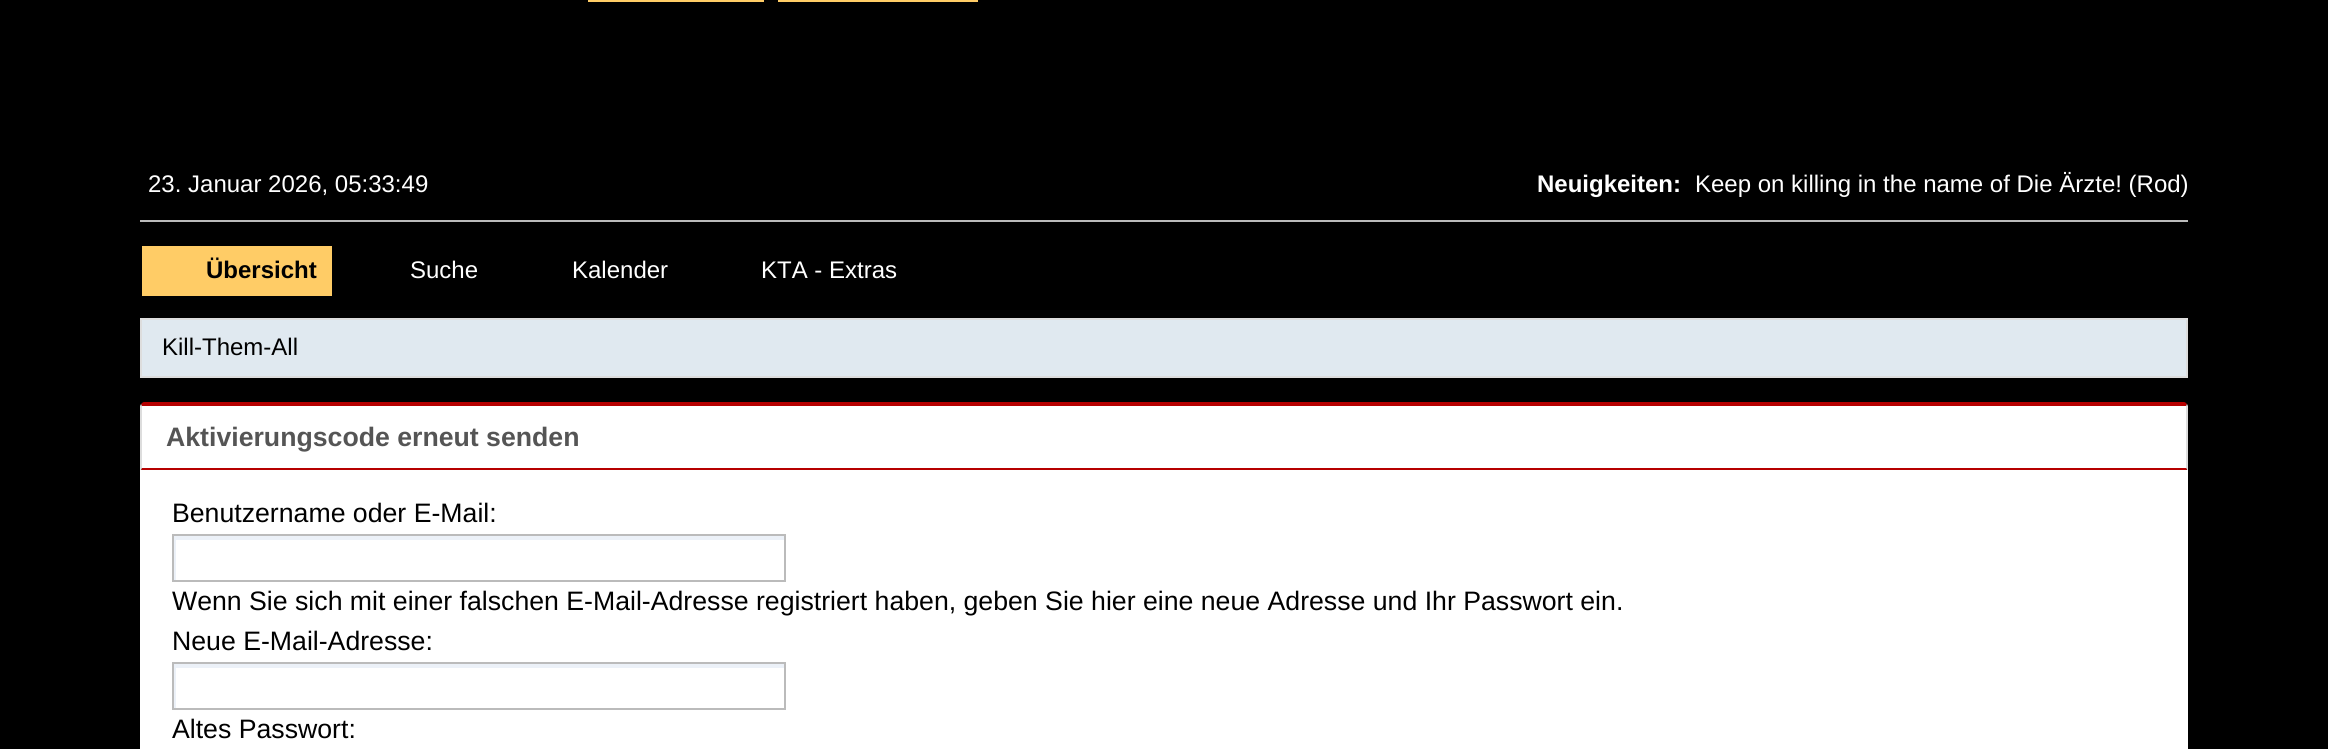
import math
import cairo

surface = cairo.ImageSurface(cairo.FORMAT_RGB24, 2328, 749)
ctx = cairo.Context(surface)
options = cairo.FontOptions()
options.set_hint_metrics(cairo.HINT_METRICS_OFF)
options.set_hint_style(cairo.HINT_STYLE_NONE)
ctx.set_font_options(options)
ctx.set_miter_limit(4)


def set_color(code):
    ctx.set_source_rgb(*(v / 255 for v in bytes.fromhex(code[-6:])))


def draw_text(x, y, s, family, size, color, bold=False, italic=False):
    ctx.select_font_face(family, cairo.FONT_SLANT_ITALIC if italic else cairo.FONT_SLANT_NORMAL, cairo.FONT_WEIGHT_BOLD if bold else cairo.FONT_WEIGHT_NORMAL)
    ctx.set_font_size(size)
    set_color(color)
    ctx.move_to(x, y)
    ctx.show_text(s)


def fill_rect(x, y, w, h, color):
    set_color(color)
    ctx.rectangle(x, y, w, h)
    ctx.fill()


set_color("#000000")
ctx.paint()
fill_rect(588, 0, 176, 2, "#ffcc66")
fill_rect(778, 0, 200, 2, "#ffcc66")
fill_rect(140, 220, 2048, 2, "#bbbbbb")
draw_text(148, 192, "23. Januar 2026, 05:33:49", "Liberation Sans", 24, "#ffffff")
draw_text(1537, 192, "Neuigkeiten:", "Liberation Sans", 24, "#ffffff", bold=True)
draw_text(1695, 192, "Keep on killing in the name of Die Ärzte! (Rod)", "Liberation Sans", 24, "#ffffff")
fill_rect(142, 246, 190, 50, "#ffcc66")
draw_text(206, 278, "Übersicht", "Liberation Sans", 24, "#000000", bold=True)
draw_text(410, 278, "Suche", "Liberation Sans", 24, "#ffffff")
draw_text(572, 278, "Kalender", "Liberation Sans", 24, "#ffffff")
draw_text(761, 278, "KTA - Extras", "Liberation Sans", 24, "#ffffff")
set_color("#e0e9f0")
ctx.rectangle(141, 319, 2046, 58)
ctx.fill_preserve()
set_color("#dddddd")
ctx.stroke()
draw_text(162, 355, "Kill-Them-All", "Liberation Sans", 24, "#000000")
set_color("#ffffff")
ctx.new_path()
ctx.move_to(144, 406)
ctx.line_to(2186, 406)
ctx.line_to(2186, 468)
ctx.line_to(142, 468)
ctx.line_to(142, 406)
ctx.close_path()
ctx.fill()
set_color("#b60000")
ctx.new_path()
ctx.move_to(144, 402)
ctx.curve_to(143, 402, 142, 403, 141, 404)
ctx.line_to(142, 406)
ctx.line_to(2186, 406)
ctx.line_to(2187, 404)
ctx.curve_to(2186, 403, 2185, 402, 2184, 402)
ctx.close_path()
ctx.fill()
set_color("#dddddd")
ctx.new_path()
ctx.move_to(2188, 472)
ctx.line_to(2188, 406)
ctx.line_to(2187, 404)
ctx.line_to(2186, 406)
ctx.line_to(2186, 468)
ctx.close_path()
ctx.fill()
set_color("#b60000")
ctx.new_path()
ctx.move_to(2188, 472)
ctx.line_to(2186, 468)
ctx.line_to(142, 468)
ctx.line_to(140, 472)
ctx.close_path()
ctx.fill()
set_color("#dddddd")
ctx.new_path()
ctx.move_to(140, 472)
ctx.line_to(142, 468)
ctx.line_to(142, 406)
ctx.line_to(141, 404)
ctx.line_to(140, 406)
ctx.close_path()
ctx.fill()
draw_text(166, 446, "Aktivierungscode erneut senden", "Liberation Sans", 26.67, "#555555", bold=True)
fill_rect(140, 470, 2048, 279, "#ffffff")
draw_text(172, 522, "Benutzername oder E-Mail:", "Liberation Sans", 26.67, "#000000")
ctx.save()
ctx.rectangle(174, 536, 610, 44)
ctx.clip()
set_color("#ecf1f8")
ctx.set_fill_rule(cairo.FILL_RULE_EVEN_ODD)
ctx.new_path()
ctx.move_to(-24, 338)
ctx.line_to(982, 338)
ctx.line_to(982, 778)
ctx.line_to(-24, 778)
ctx.close_path()
ctx.move_to(176, 540)
ctx.line_to(786, 540)
ctx.line_to(786, 584)
ctx.line_to(176, 584)
ctx.close_path()
ctx.fill()
ctx.restore()
ctx.rectangle(173, 535, 612, 46)
set_color("#bbbbbb")
ctx.stroke()
draw_text(172, 610, "Wenn Sie sich mit einer falschen E-Mail-Adresse registriert haben, geben Sie hier eine neue Adresse und Ihr Passwort ein.", "Liberation Sans", 26.67, "#000000")
draw_text(172, 650, "Neue E-Mail-Adresse:", "Liberation Sans", 26.67, "#000000")
ctx.save()
ctx.rectangle(174, 664, 610, 44)
ctx.clip()
set_color("#ecf1f8")
ctx.set_fill_rule(cairo.FILL_RULE_EVEN_ODD)
ctx.new_path()
ctx.move_to(-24, 466)
ctx.line_to(982, 466)
ctx.line_to(982, 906)
ctx.line_to(-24, 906)
ctx.close_path()
ctx.move_to(176, 668)
ctx.line_to(786, 668)
ctx.line_to(786, 712)
ctx.line_to(176, 712)
ctx.close_path()
ctx.fill()
ctx.restore()
ctx.rectangle(173, 663, 612, 46)
set_color("#bbbbbb")
ctx.stroke()
draw_text(172, 738, "Altes Passwort:", "Liberation Sans", 26.67, "#000000")
surface.write_to_png("output.png")
